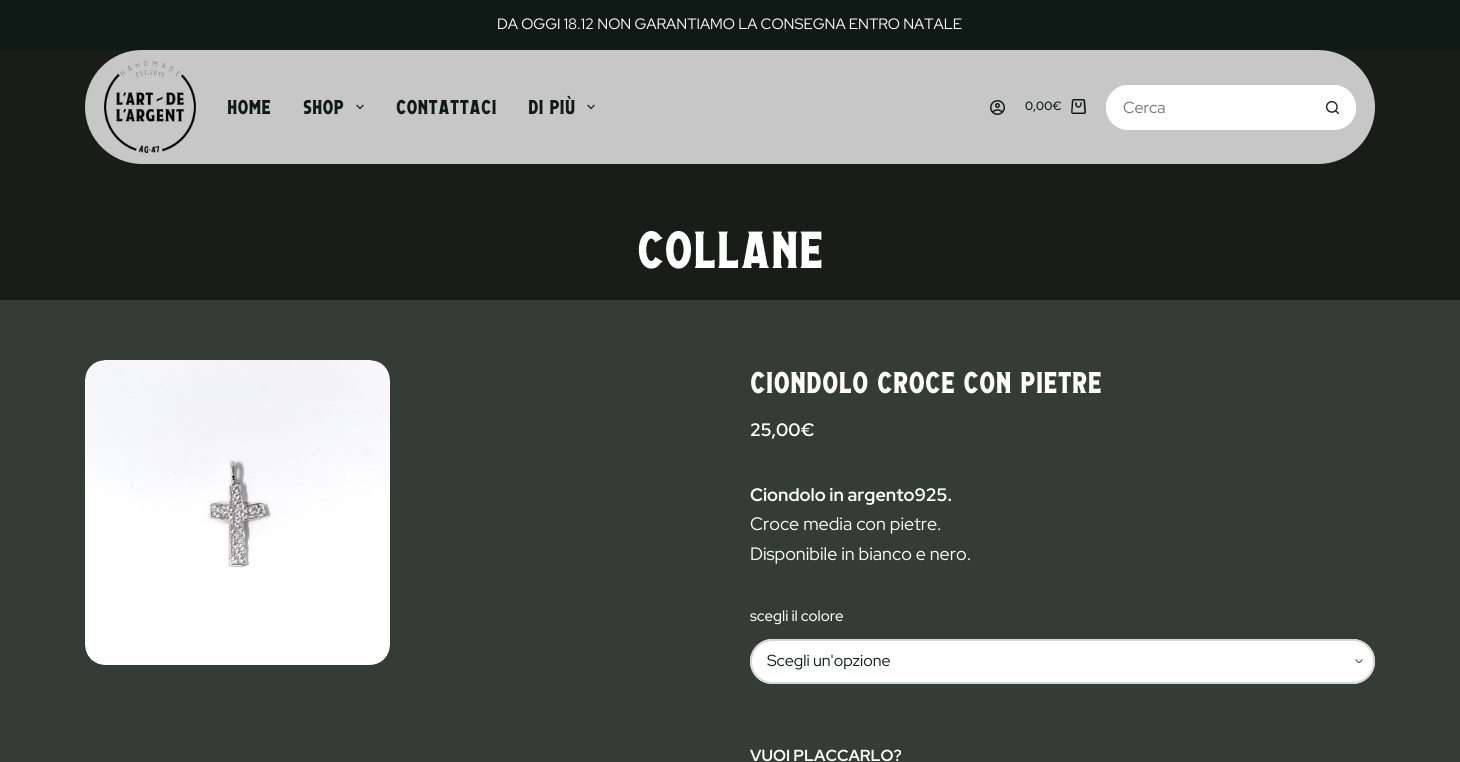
import math
import cairo

surface = cairo.ImageSurface(cairo.FORMAT_RGB24, 1460, 762)
ctx = cairo.Context(surface)
options = cairo.FontOptions()
options.set_hint_metrics(cairo.HINT_METRICS_OFF)
options.set_hint_style(cairo.HINT_STYLE_NONE)
ctx.set_font_options(options)
ctx.set_miter_limit(4)


def set_color(code):
    ctx.set_source_rgb(*(v / 255 for v in bytes.fromhex(code[-6:])))


def draw_text(x, y, s, family, size, color, bold=False, italic=False):
    ctx.select_font_face(family, cairo.FONT_SLANT_ITALIC if italic else cairo.FONT_SLANT_NORMAL, cairo.FONT_WEIGHT_BOLD if bold else cairo.FONT_WEIGHT_NORMAL)
    ctx.set_font_size(size)
    set_color(color)
    ctx.move_to(x, y)
    ctx.show_text(s)


def fill_rect(x, y, w, h, color):
    set_color(color)
    ctx.rectangle(x, y, w, h)
    ctx.fill()


def rounded_rect(x, y, w, h, r):
    ctx.new_sub_path()
    for i, (u, v) in enumerate([(x + w - r, y + h - r), (x + r, y + h - r), (x + r, y + r), (x + w - r, y + r)]):
        ctx.arc(u, v, r, i * math.pi / 2, (i + 1) * math.pi / 2)
    ctx.close_path()


def draw_image(path, x, y, w, h):
    ctx.save()
    ctx.set_source_surface(cairo.ImageSurface.create_from_png(path), x, y)
    ctx.rectangle(x, y, w, h)
    ctx.fill()
    ctx.restore()


set_color("#333c35")
ctx.paint()
fill_rect(0, 0, 1460, 50, "#0f1a17")
draw_text(497, 29, "DA OGGI 18.12 NON GARANTIAMO LA CONSEGNA ENTRO NATALE", "Red Hat Display", 15, "#ffffff")
fill_rect(0, 50, 1460, 250, "#191d19")
set_color("#c6c7c6")
rounded_rect(85, 50, 1290, 114, 57)
ctx.fill()
draw_image("assets/img1.png", 104, 61, 92, 92)
draw_text(227, 114, "HOME", "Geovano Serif", 20, "#0f1a17")
draw_text(303, 114, "SHOP", "Geovano Serif", 20, "#0f1a17")
draw_image("assets/img2.png", 356, 104, 8, 6)
draw_text(396, 114, "CONTATTACI", "Geovano Serif", 20, "#0f1a17")
draw_text(528, 114, "DI PIÙ", "Geovano Serif", 20, "#0f1a17")
draw_image("assets/img2.png", 587, 104, 8, 6)
draw_image("assets/img3.png", 990, 100, 15, 15)
draw_text(1025, 110, "0,00€", "Red Hat Display SemiBold", 12, "#0f1a17")
draw_image("assets/img4.png", 1071, 99, 15, 15)
set_color("#ffffff")
ctx.new_path()
ctx.move_to(1128.5, 85)
ctx.line_to(1311, 85)
ctx.line_to(1311, 130)
ctx.line_to(1128.5, 130)
ctx.curve_to(1116, 130, 1106, 120, 1106, 107.5)
ctx.curve_to(1106, 95, 1116, 85, 1128.5, 85)
ctx.close_path()
ctx.fill()
ctx.set_fill_rule(cairo.FILL_RULE_EVEN_ODD)
ctx.new_path()
ctx.move_to(1128, 85)
ctx.line_to(1311, 85)
ctx.line_to(1311, 130)
ctx.line_to(1128, 130)
ctx.curve_to(1116, 130, 1106, 120, 1106, 108)
ctx.curve_to(1106, 95, 1116, 85, 1128, 85)
ctx.close_path()
ctx.move_to(1128, 87)
ctx.line_to(1311, 87)
ctx.line_to(1311, 128)
ctx.line_to(1128, 128)
ctx.curve_to(1117, 128, 1108, 119, 1108, 108)
ctx.curve_to(1108, 96, 1117, 87, 1128, 87)
ctx.close_path()
ctx.fill()
draw_text(1123, 113, "Cerca", "Red Hat Display", 16, "#6f7674")
set_color("#ffffff")
ctx.new_path()
ctx.move_to(1311, 85)
ctx.line_to(1333.5, 85)
ctx.curve_to(1346, 85, 1356, 95, 1356, 107.5)
ctx.curve_to(1356, 120, 1346, 130, 1333.5, 130)
ctx.line_to(1311, 130)
ctx.close_path()
ctx.fill()
ctx.new_path()
ctx.move_to(1311, 85)
ctx.line_to(1334, 85)
ctx.curve_to(1346, 85, 1356, 95, 1356, 108)
ctx.curve_to(1356, 120, 1346, 130, 1334, 130)
ctx.line_to(1311, 130)
ctx.close_path()
ctx.move_to(1311, 87)
ctx.line_to(1334, 87)
ctx.curve_to(1345, 87, 1354, 96, 1354, 108)
ctx.curve_to(1354, 119, 1345, 128, 1334, 128)
ctx.line_to(1311, 128)
ctx.close_path()
ctx.fill()
draw_image("assets/img5.png", 1326, 101, 13, 13)
draw_text(637, 268, "COLLANE", "Geovano Serif", 52, "#ffffff")
draw_image("assets/img6.png", 85, 360, 305, 305)
draw_text(750, 393, "Ciondolo Croce con Pietre", "Geovano Serif", 30, "#ffffff")
draw_text(750, 436, "25,00€", "Red Hat Display", 18, "#ffffff", bold=True)
draw_text(750, 501, "Ciondolo in argento925.", "Red Hat Display", 18, "#ffffff", bold=True)
draw_text(750, 530, "Croce media con pietre.", "Red Hat Display", 18, "#ffffff")
draw_text(750, 560, "Disponibile in bianco e nero.", "Red Hat Display", 18, "#ffffff")
draw_text(750, 621, "scegli il colore", "Red Hat Display Medium", 15, "#ffffff")
rounded_rect(750, 639, 625, 45, 22.5)
ctx.fill()
draw_image("assets/img7.png", 1355, 659, 8, 4)
rounded_rect(751, 640, 623, 43, 21.5)
set_color("#d7d7d7")
ctx.stroke()
draw_text(767, 666, "Scegli un'opzione", "Red Hat Display", 16, "#0f1a17")
draw_text(750, 761, "VUOI PLACCARLO?", "Red Hat Display", 16, "#ffffff", bold=True)
surface.write_to_png("output.png")
